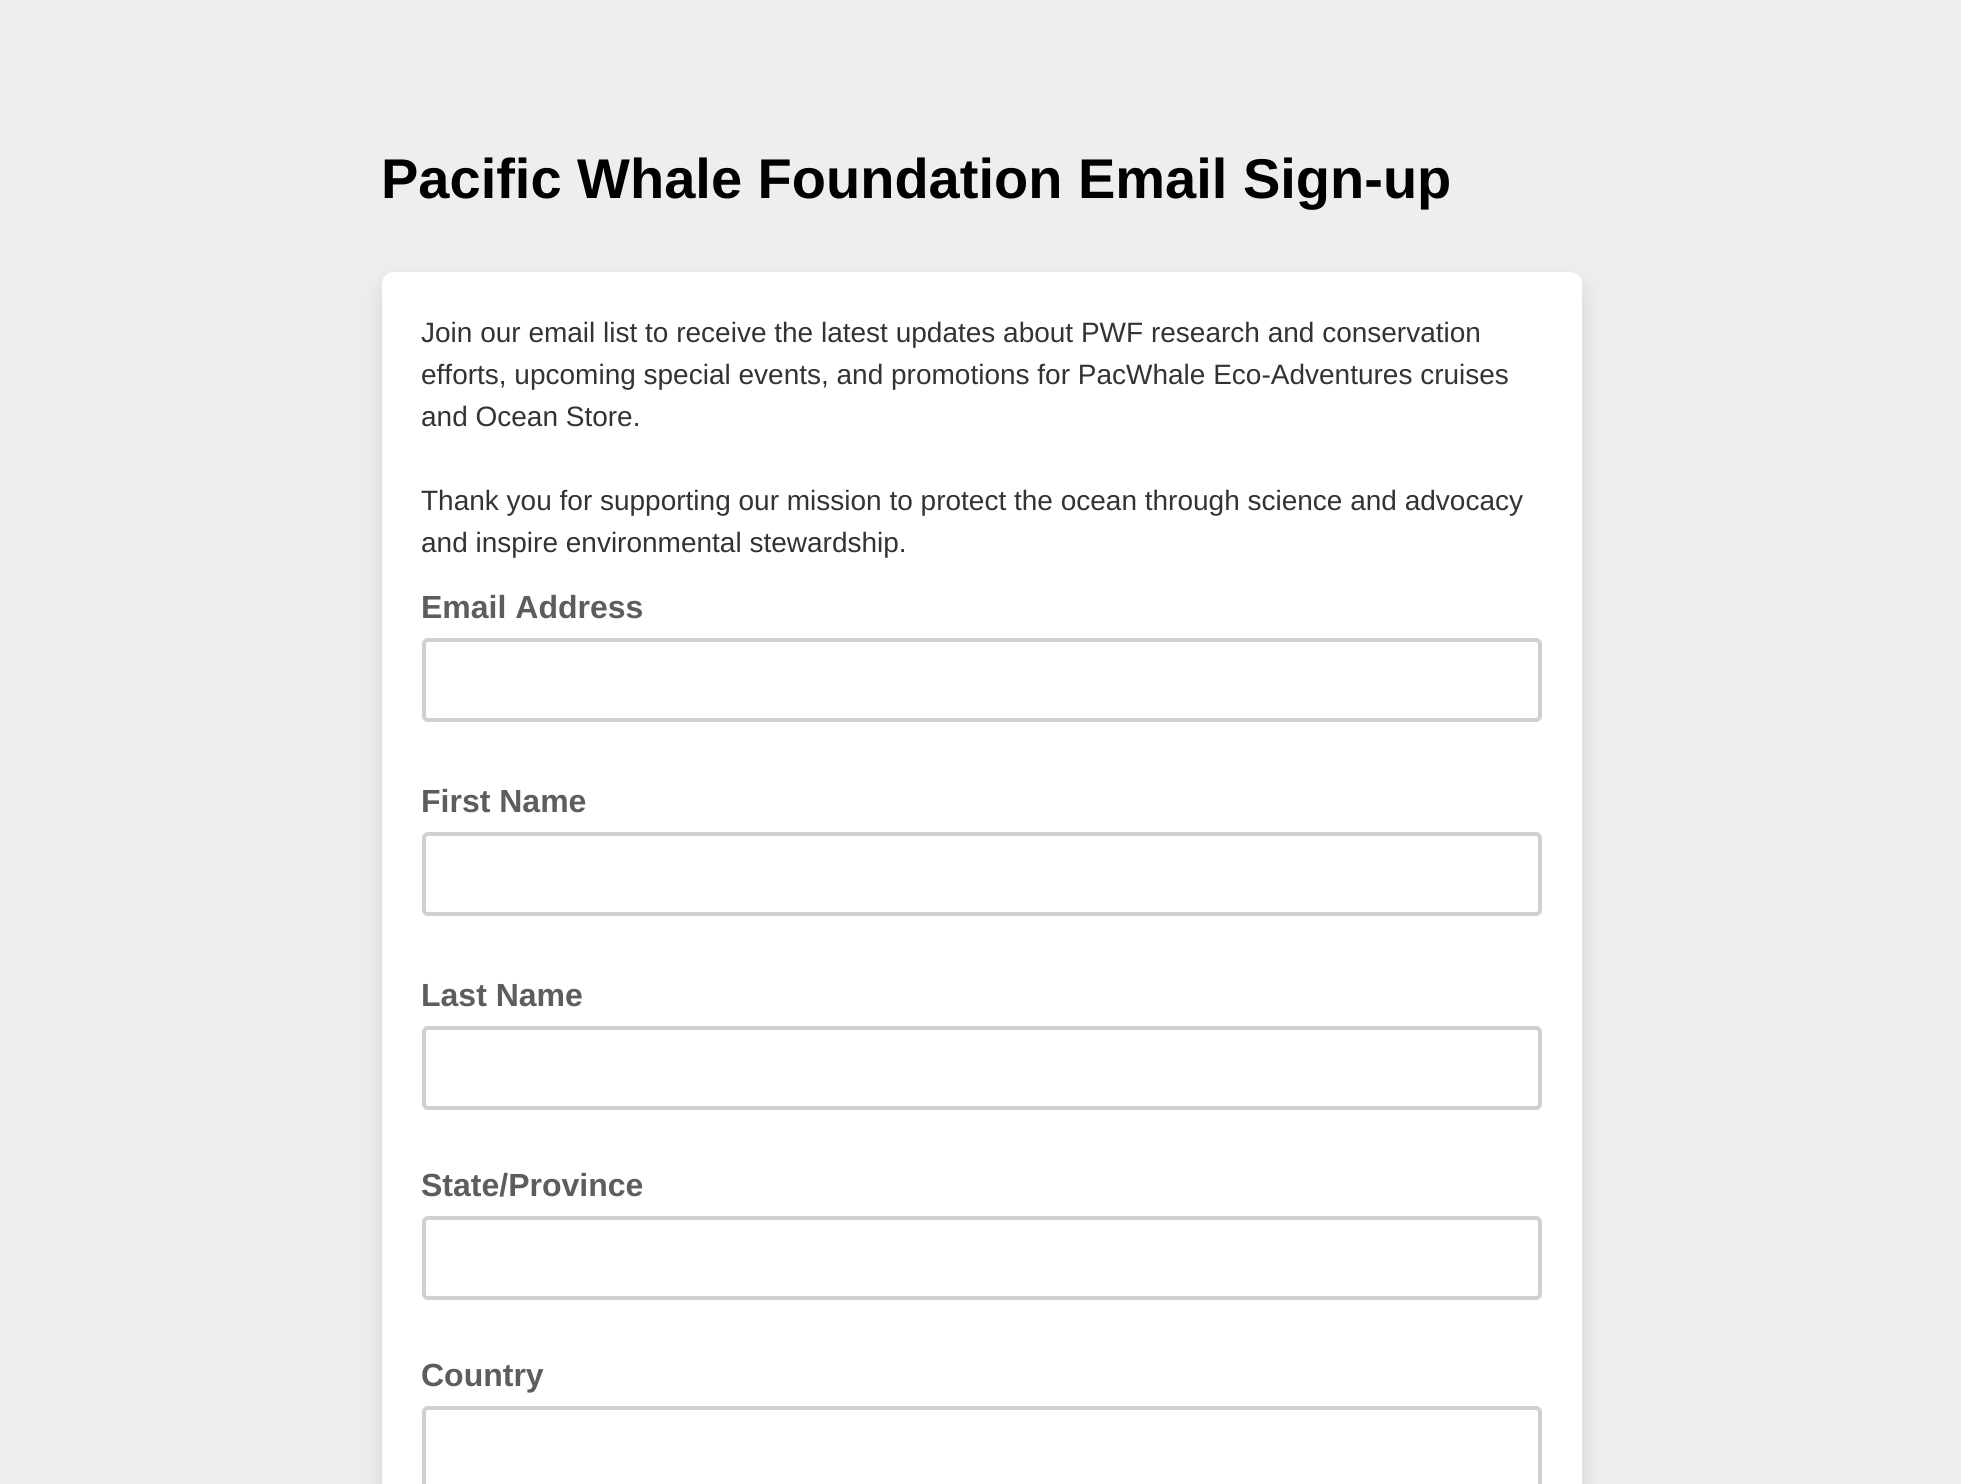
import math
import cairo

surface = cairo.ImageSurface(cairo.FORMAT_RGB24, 1961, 1484)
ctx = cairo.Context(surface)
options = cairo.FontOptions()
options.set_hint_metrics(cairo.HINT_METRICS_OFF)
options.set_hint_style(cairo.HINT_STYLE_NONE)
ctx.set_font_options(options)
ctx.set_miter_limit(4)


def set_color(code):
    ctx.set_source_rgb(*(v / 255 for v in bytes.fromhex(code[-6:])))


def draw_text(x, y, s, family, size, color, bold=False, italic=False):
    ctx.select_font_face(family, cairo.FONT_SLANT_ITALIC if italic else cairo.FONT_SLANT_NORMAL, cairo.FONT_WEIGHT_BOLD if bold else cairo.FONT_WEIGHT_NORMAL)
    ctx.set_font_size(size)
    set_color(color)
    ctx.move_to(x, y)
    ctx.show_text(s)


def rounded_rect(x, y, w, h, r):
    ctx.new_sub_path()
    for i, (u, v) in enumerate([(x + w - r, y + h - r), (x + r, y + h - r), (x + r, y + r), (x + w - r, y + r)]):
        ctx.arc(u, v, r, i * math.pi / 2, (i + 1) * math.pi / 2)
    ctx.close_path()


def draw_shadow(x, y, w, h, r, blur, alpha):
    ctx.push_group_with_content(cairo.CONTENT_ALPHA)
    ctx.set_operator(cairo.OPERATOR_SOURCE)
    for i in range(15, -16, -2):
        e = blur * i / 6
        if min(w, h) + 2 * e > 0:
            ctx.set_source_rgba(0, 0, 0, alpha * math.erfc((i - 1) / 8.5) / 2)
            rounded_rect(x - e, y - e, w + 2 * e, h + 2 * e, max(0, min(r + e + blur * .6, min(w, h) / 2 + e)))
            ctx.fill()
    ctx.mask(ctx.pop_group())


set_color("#eeeeee")
ctx.paint()
draw_text(381, 198, "Pacific Whale Foundation Email Sign-up", "Liberation Sans", 56, "#000000", bold=True)
set_color("#0d1216")
draw_shadow(382, 284, 1200, 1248, 12, 12, 0.12)
set_color("#ffffff")
rounded_rect(382, 272, 1200, 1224, 12)
ctx.fill()
draw_text(421, 342, "Join our email list to receive the latest updates about PWF research and conservation", "Liberation Sans", 28, "#333333")
draw_text(421, 384, "efforts, upcoming special events, and promotions for PacWhale Eco-Adventures cruises", "Liberation Sans", 28, "#333333")
draw_text(421, 426, "and Ocean Store.", "Liberation Sans", 28, "#333333")
draw_text(421, 510, "Thank you for supporting our mission to protect the ocean through science and advocacy", "Liberation Sans", 28, "#333333")
draw_text(421, 552, "and inspire environmental stewardship.", "Liberation Sans", 28, "#333333")
draw_text(421, 618, "Email Address", "Liberation Sans", 32, "#5d5d5d", bold=True)
rounded_rect(424, 640, 1116, 80, 4)
set_color("#d0d0d0")
ctx.set_line_width(4)
ctx.stroke()
draw_text(421, 812, "First Name", "Liberation Sans", 32, "#5d5d5d", bold=True)
rounded_rect(424, 834, 1116, 80, 4)
set_color("#d0d0d0")
ctx.stroke()
draw_text(421, 1006, "Last Name", "Liberation Sans", 32, "#5d5d5d", bold=True)
rounded_rect(424, 1028, 1116, 80, 4)
set_color("#d0d0d0")
ctx.stroke()
draw_text(421, 1196, "State/Province", "Liberation Sans", 32, "#5d5d5d", bold=True)
rounded_rect(424, 1218, 1116, 80, 4)
set_color("#d0d0d0")
ctx.stroke()
draw_text(421, 1386, "Country", "Liberation Sans", 32, "#5d5d5d", bold=True)
rounded_rect(424, 1408, 1116, 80, 4)
set_color("#d0d0d0")
ctx.stroke()
surface.write_to_png("output.png")
